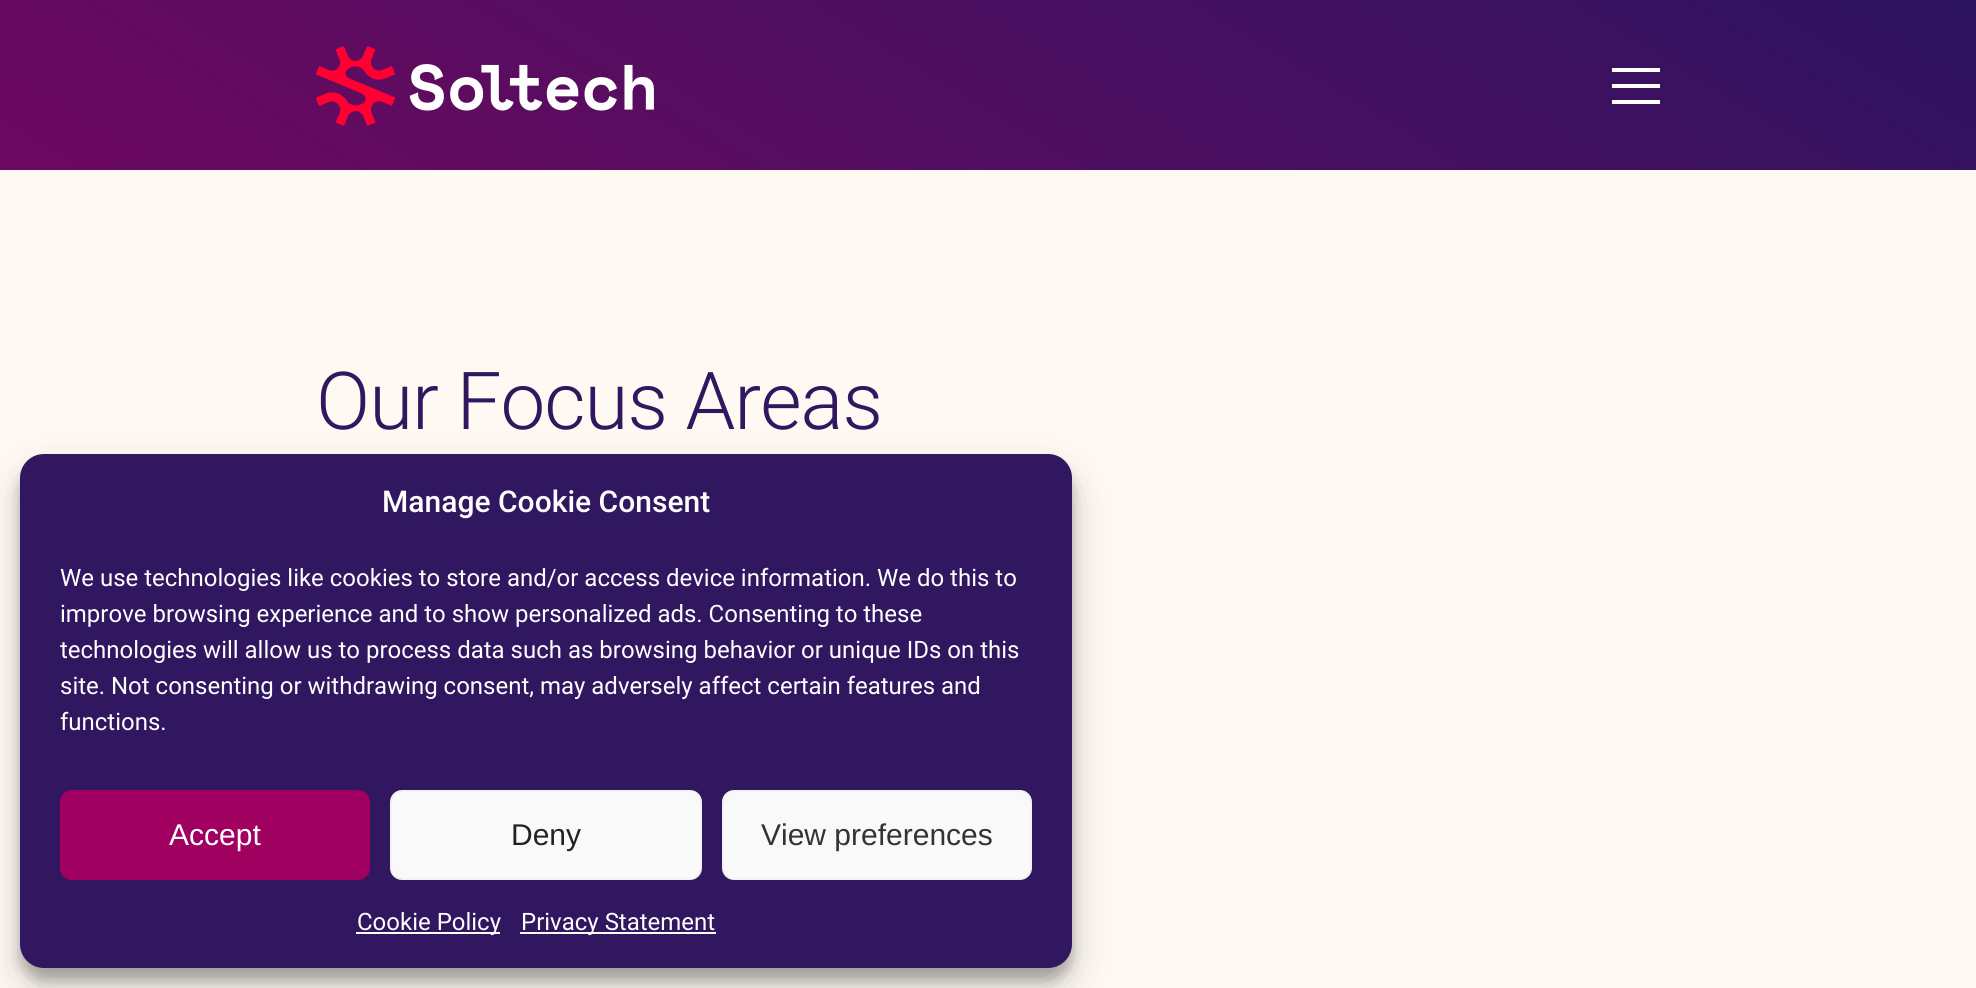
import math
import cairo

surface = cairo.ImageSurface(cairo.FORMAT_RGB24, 1976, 988)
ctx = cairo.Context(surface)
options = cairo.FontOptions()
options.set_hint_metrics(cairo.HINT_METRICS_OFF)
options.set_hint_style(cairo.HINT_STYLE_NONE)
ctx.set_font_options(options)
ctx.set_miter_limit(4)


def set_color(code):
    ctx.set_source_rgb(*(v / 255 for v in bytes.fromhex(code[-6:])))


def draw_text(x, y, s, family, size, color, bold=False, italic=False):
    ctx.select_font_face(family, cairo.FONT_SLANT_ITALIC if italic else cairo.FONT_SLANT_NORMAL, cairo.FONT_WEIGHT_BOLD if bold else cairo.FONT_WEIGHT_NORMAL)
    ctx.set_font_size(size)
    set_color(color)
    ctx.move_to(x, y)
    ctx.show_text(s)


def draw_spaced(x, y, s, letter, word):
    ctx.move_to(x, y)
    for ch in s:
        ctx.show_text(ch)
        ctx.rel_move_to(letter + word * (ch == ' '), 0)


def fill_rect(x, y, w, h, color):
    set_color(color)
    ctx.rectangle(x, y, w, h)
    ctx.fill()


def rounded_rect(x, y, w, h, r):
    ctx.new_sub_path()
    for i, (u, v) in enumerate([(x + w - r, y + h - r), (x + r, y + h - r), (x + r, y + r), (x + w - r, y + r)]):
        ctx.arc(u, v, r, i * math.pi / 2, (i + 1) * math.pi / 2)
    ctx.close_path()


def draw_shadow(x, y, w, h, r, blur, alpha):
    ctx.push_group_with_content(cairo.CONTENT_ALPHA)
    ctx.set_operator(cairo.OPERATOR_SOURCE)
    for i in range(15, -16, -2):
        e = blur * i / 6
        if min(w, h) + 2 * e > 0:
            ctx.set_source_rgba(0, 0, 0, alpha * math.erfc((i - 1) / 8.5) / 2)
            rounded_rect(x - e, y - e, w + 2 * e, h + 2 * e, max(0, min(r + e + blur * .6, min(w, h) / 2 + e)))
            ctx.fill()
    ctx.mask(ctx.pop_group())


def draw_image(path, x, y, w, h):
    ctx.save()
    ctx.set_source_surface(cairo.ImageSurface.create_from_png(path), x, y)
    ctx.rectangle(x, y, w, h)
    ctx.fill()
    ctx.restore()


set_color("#fff9f3")
ctx.paint()
gradient = cairo.LinearGradient(451, 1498, 1525, -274)
gradient.add_color_stop_rgba(0, 0.627, 0, 0.376, 1)
gradient.add_color_stop_rgba(1, 0.176, 0.078, 0.376, 1)
ctx.set_source(gradient)
ctx.rectangle(0, 0, 1976, 170)
ctx.fill()
draw_image("assets/img1.png", 316, 46, 338, 80)
fill_rect(1612, 68, 48, 4, "#ffffff")
fill_rect(1612, 84, 48, 4, "#ffffff")
fill_rect(1612, 100, 48, 4, "#ffffff")
ctx.select_font_face("Roboto Light")
ctx.set_font_size(80)
set_color("#301760")
draw_spaced(316, 429, "Our Focus Areas", -1, 0)
set_color("#000000")
draw_shadow(20, 466, 1052, 514, 24, 6, 0.23)
draw_shadow(20, 474, 1052, 514, 24, 20, 0.19)
set_color("#301760")
rounded_rect(20, 454, 1052, 514, 24)
ctx.fill()
draw_text(382, 512, "Manage Cookie Consent", "Roboto Medium", 30, "#ffffff")
draw_text(60, 586, "We use technologies like cookies to store and/or access device information. We do this to", "Roboto", 24, "#ffffff")
draw_text(60, 622, "improve browsing experience and to show personalized ads. Consenting to these", "Roboto", 24, "#ffffff")
draw_text(60, 658, "technologies will allow us to process data such as browsing behavior or unique IDs on this", "Roboto", 24, "#ffffff")
draw_text(60, 694, "site. Not consenting or withdrawing consent, may adversely affect certain features and", "Roboto", 24, "#ffffff")
draw_text(60, 730, "functions.", "Roboto", 24, "#ffffff")
set_color("#a00060")
rounded_rect(61, 791, 308, 88, 11)
ctx.fill_preserve()
ctx.stroke()
draw_text(169, 845, "Accept", "Liberation Sans", 30, "#ffffff")
set_color("#f9f9f9")
rounded_rect(391, 791, 310, 88, 11)
ctx.fill_preserve()
set_color("#f2f2f2")
ctx.stroke()
draw_text(511, 845, "Deny", "Liberation Sans", 30, "#222222")
set_color("#f9f9f9")
rounded_rect(723, 791, 308, 88, 11)
ctx.fill_preserve()
set_color("#f2f2f2")
ctx.stroke()
draw_text(761, 845, "View preferences", "Liberation Sans", 30, "#333333")
fill_rect(356, 932, 144, 2, "#ffffff")
draw_text(357, 930, "Cookie Policy", "Roboto", 24, "#ffffff")
fill_rect(520, 932, 196, 2, "#ffffff")
draw_text(521, 930, "Privacy Statement", "Roboto", 24, "#ffffff")
surface.write_to_png("output.png")
